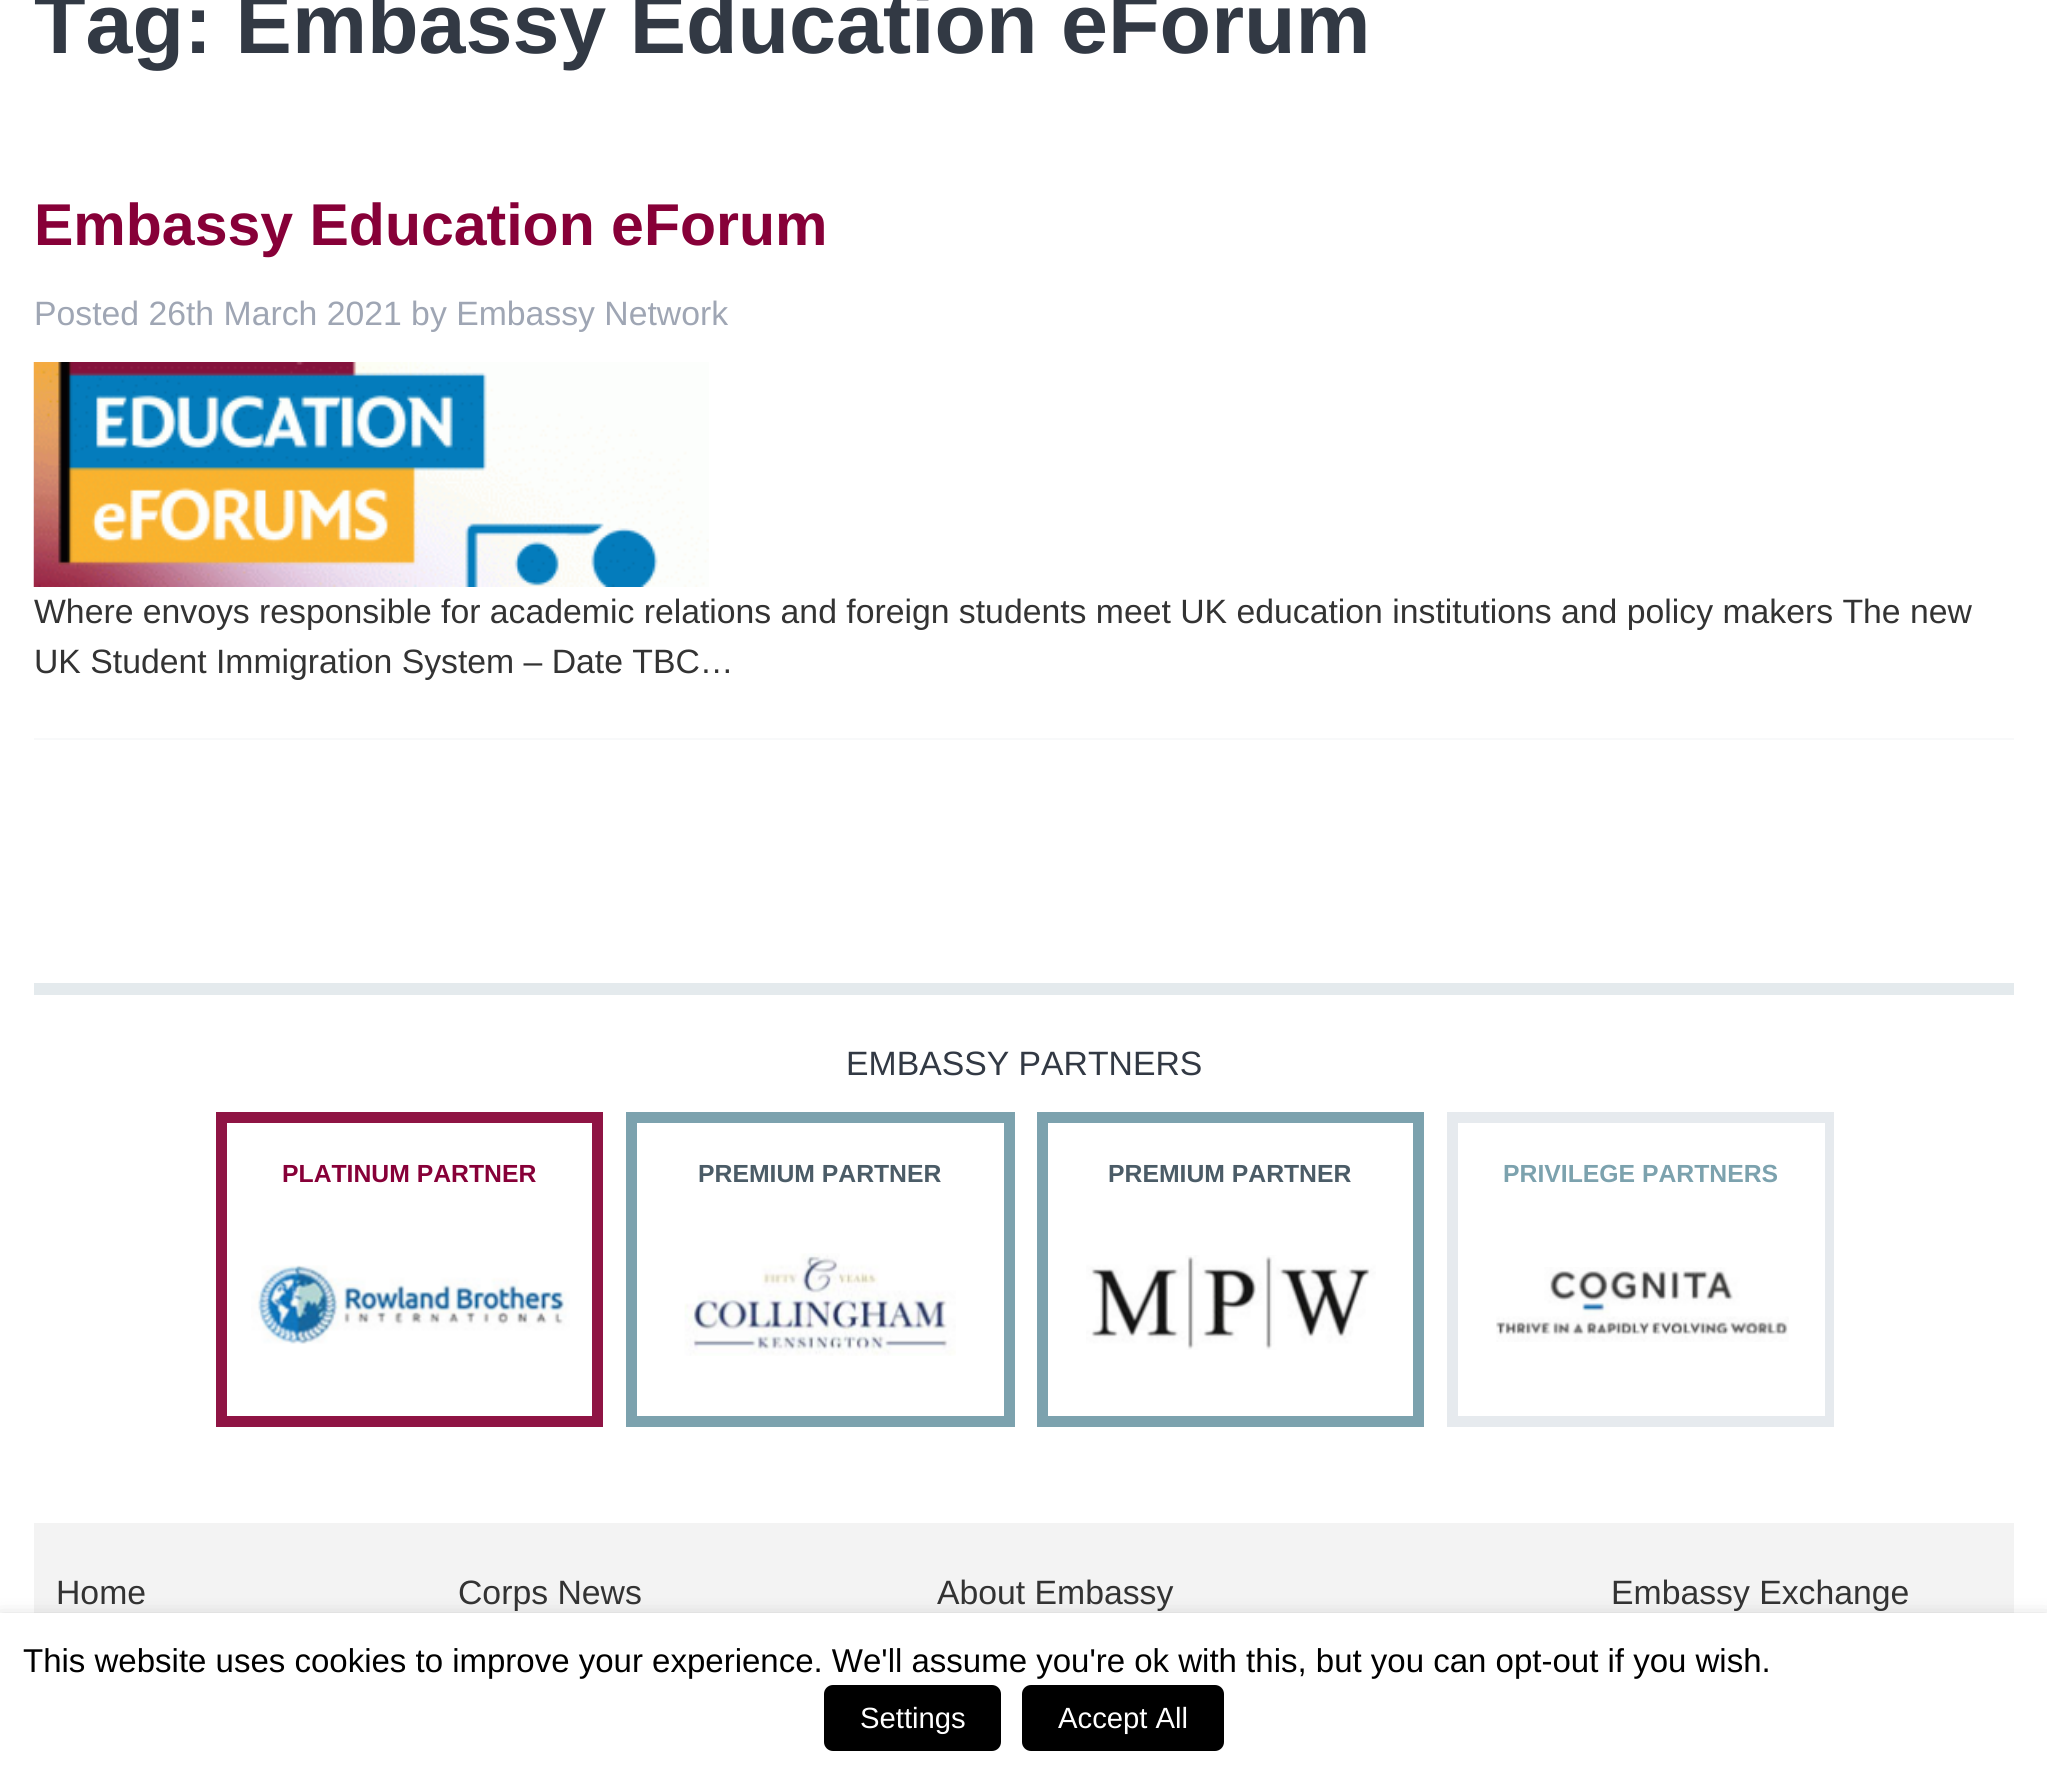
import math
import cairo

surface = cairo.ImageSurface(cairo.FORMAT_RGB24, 2047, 1772)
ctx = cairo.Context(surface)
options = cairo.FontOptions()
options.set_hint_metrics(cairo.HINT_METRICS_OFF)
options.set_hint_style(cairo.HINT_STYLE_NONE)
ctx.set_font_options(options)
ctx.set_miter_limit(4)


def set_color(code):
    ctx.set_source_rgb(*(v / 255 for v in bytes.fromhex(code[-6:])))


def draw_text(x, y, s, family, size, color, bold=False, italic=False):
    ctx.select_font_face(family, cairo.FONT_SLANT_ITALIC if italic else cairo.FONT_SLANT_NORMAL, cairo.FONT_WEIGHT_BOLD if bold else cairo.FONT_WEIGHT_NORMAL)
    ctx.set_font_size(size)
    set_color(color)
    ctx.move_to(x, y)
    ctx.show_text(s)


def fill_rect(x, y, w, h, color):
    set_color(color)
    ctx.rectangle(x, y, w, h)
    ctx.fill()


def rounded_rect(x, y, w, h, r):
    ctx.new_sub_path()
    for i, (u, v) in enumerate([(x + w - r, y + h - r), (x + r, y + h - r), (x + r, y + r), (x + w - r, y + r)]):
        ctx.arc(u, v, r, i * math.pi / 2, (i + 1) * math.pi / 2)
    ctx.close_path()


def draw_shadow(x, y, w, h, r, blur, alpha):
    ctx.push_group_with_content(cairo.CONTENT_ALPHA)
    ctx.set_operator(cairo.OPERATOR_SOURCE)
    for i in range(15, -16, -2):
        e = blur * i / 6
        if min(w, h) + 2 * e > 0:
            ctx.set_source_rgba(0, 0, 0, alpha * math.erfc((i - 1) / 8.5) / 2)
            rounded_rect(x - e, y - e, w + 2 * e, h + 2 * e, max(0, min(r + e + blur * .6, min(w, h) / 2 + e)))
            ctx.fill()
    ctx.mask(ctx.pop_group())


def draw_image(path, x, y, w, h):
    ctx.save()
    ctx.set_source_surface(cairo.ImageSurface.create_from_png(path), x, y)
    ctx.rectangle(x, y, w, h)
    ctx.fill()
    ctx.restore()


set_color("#ffffff")
ctx.paint()
draw_text(34, 53, "Tag: Embassy Education eForum", "Liberation Sans", 84.4, "#323944", bold=True)
draw_text(34, 245, "Embassy Education eForum", "Liberation Sans", 59, "#870038", bold=True)
draw_text(34, 325, "Posted 26th March 2021 by Embassy Network", "Liberation Sans", 33.75, "#9fa6b4")
draw_image("assets/img1.png", 33, 362, 676, 225)
draw_text(34, 623, "Where envoys responsible for academic relations and foreign students meet UK education institutions and policy makers The new", "Liberation Sans", 33.75, "#333333")
draw_text(34, 673, "UK Student Immigration System – Date TBC…", "Liberation Sans", 33.75, "#333333")
fill_rect(34, 738, 1980, 2, "#f8f9fa")
fill_rect(34, 983, 1980, 12, "#e4eaed")
draw_text(846, 1075, "EMBASSY PARTNERS", "Liberation Sans", 33.75, "#323944")
ctx.rectangle(221.5, 1117.5, 376, 304)
set_color("#8f1444")
ctx.set_line_width(11)
ctx.stroke()
draw_text(282, 1182, "PLATINUM PARTNER", "Liberation Sans", 24.75, "#870038", bold=True)
draw_image("assets/img2.png", 251, 1265, 319, 79)
ctx.rectangle(631.5, 1117.5, 378, 304)
set_color("#7ca2ae")
ctx.stroke()
draw_text(698, 1182, "PREMIUM PARTNER", "Liberation Sans", 24.75, "#4b5c67", bold=True)
draw_image("assets/img3.png", 684, 1253, 272, 103)
ctx.rectangle(1042.5, 1117.5, 376, 304)
set_color("#7ca2ae")
ctx.stroke()
draw_text(1108, 1182, "PREMIUM PARTNER", "Liberation Sans", 24.75, "#4b5c67", bold=True)
draw_image("assets/img4.png", 1086, 1255, 290, 95)
ctx.save()
ctx.rectangle(214, 1112, 1620, 315)
ctx.clip()
ctx.rectangle(1452.5, 1117.5, 378, 304)
set_color("#e6eaee")
ctx.stroke()
ctx.restore()
draw_text(1503, 1182, "PRIVILEGE PARTNERS", "Liberation Sans", 24.75, "#7ca2ae", bold=True)
draw_image("assets/img5.png", 1496, 1267, 293, 75)
fill_rect(34, 1523, 1980, 90, "#f3f3f3")
draw_text(56, 1604, "Home", "Liberation Sans", 33.75, "#333333")
draw_text(458, 1604, "Corps News", "Liberation Sans", 33.75, "#333333")
draw_text(937, 1604, "About Embassy", "Liberation Sans", 33.75, "#333333")
draw_text(1611, 1604, "Embassy Exchange", "Liberation Sans", 33.75, "#333333")
set_color("#000000")
draw_shadow(0, 1625, 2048, 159, 0, 11, 0.5)
fill_rect(0, 1613, 2047, 159, "#ffffff")
draw_text(23, 1672, "This website uses cookies to improve your experience. We'll assume you're ok with this, but you can opt-out if you wish.", "Liberation Sans", 33, "#000000")
rounded_rect(824, 1685, 177, 66, 9)
ctx.fill()
draw_text(860, 1728, "Settings", "Liberation Sans", 29.25, "#ffffff")
set_color("#000000")
rounded_rect(1022, 1685, 202, 66, 9)
ctx.fill()
draw_text(1058, 1728, "Accept All", "Liberation Sans", 29.25, "#ffffff")
surface.write_to_png("output.png")
